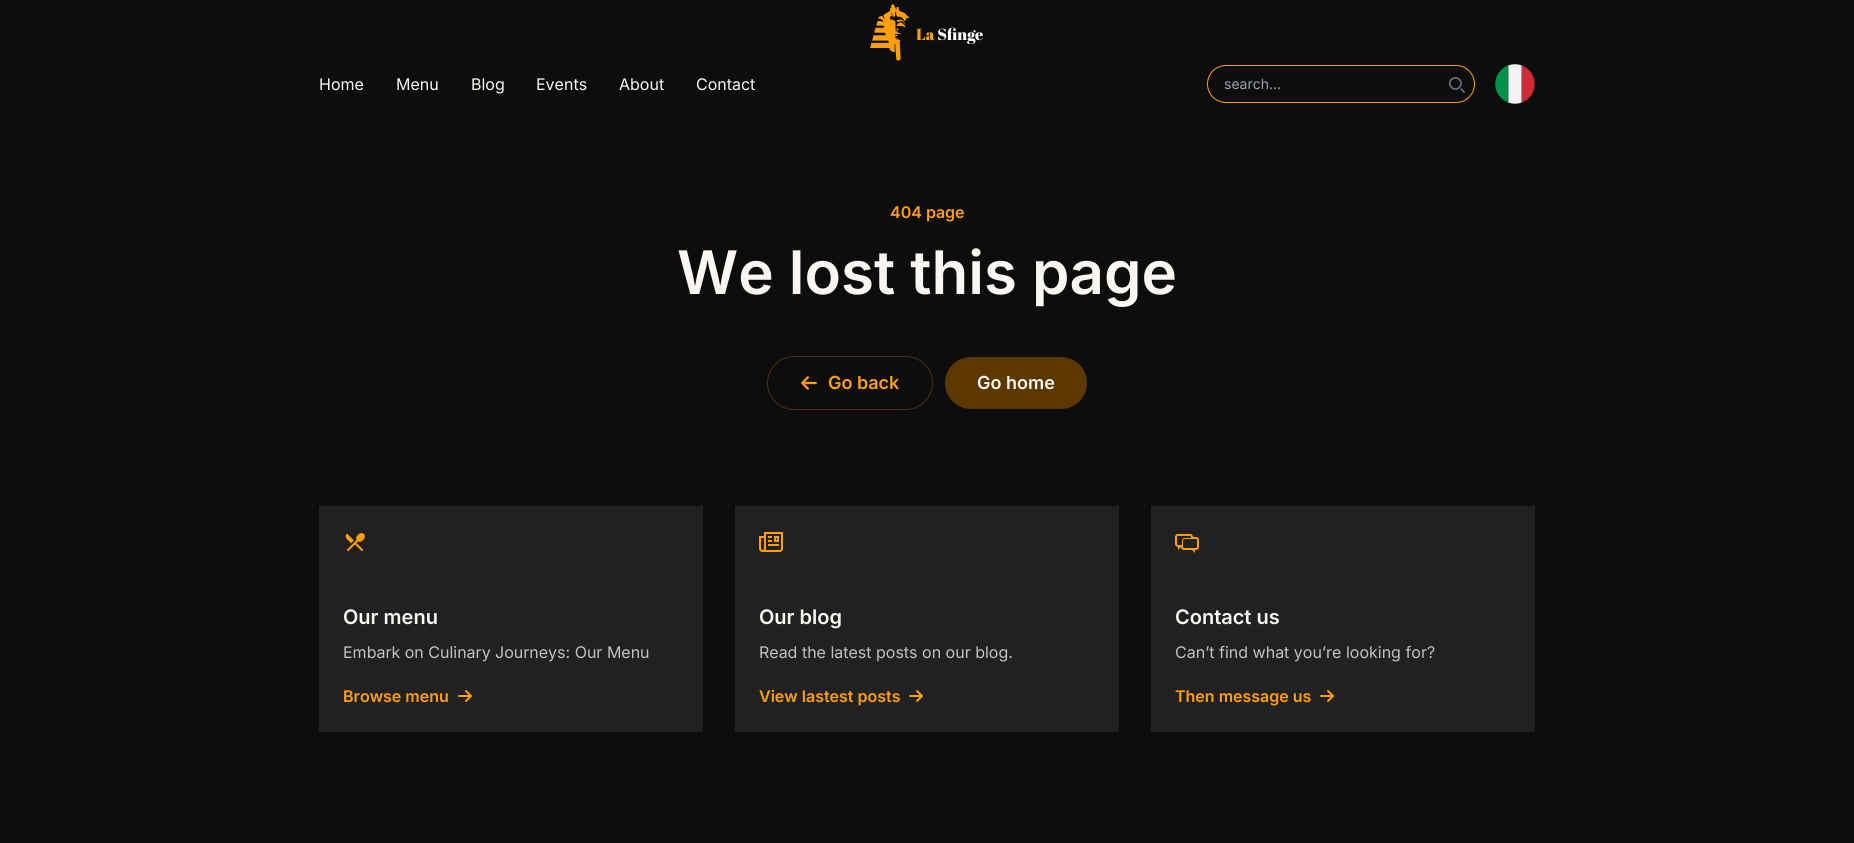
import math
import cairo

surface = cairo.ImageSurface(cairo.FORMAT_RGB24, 1854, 843)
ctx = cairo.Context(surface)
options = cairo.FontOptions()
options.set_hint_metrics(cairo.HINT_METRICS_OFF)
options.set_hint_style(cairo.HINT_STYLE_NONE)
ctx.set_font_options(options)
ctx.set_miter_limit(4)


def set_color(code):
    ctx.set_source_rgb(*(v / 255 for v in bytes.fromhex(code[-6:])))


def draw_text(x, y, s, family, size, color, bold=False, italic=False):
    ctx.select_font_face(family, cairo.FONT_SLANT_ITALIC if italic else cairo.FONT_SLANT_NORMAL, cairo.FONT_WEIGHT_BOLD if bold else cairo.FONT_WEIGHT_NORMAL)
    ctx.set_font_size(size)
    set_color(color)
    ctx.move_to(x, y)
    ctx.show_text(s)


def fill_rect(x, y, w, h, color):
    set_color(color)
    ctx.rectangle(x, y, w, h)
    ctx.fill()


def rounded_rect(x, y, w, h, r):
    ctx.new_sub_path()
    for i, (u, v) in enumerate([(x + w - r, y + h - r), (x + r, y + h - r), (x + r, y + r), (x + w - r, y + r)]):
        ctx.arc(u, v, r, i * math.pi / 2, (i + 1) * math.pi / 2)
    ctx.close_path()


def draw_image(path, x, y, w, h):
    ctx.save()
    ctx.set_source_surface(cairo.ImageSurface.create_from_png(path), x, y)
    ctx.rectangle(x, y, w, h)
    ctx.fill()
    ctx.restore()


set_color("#0d0d0d")
ctx.paint()
draw_image("assets/img1.png", 870, 4, 113, 57)
draw_text(319, 90, "Home", "Inter", 16, "#faf7f2")
draw_text(396, 90, "Menu", "Inter", 16, "#faf7f2")
draw_text(471, 90, "Blog", "Inter", 16, "#faf7f2")
draw_text(536, 90, "Events", "Inter", 16, "#faf7f2")
draw_text(619, 90, "About", "Inter", 16, "#faf7f2")
draw_text(696, 90, "Contact", "Inter", 16, "#faf7f2")
rounded_rect(1207.5, 65.5, 267, 37, 18.5)
set_color("#ff9f0d")
ctx.set_line_width(1)
ctx.stroke()
draw_text(1224, 89, "search...", "Inter", 14, "#9ca3af")
draw_image("assets/img2.png", 1449, 77, 16, 16)
draw_image("assets/img3.png", 1495, 64, 40, 40)
draw_text(890, 218, "404 page", "Inter SemiBold", 16, "#ff9f0d")
draw_text(677, 294, "We lost this page", "Inter SemiBold", 60, "#faf7f2")
rounded_rect(767.5, 356.5, 165, 53, 26.5)
set_color("#4a320d")
ctx.stroke()
draw_image("assets/img4.png", 801, 376, 16, 14)
draw_text(828, 389, "Go back", "Inter SemiBold", 18, "#ff9f0d")
set_color("#5c3700")
rounded_rect(945, 357, 142, 52, 26)
ctx.fill()
draw_text(977, 389, "Go home", "Inter SemiBold", 18, "#faf7f2")
fill_rect(319, 506, 384, 226, "#212121")
draw_image("assets/img5.png", 345, 533, 20, 19)
draw_text(343, 624, "Our menu", "Inter SemiBold", 20, "#faf7f2")
draw_text(343, 658, "Embark on Culinary Journeys: Our Menu", "Inter", 16, "#c4c2be")
draw_text(343, 702, "Browse menu", "Inter SemiBold", 16, "#ff9f0d")
draw_image("assets/img6.png", 458, 690, 14, 12)
fill_rect(735, 506, 384, 226, "#212121")
draw_image("assets/img7.png", 759, 532, 24, 20)
draw_text(759, 624, "Our blog", "Inter SemiBold", 20, "#faf7f2")
draw_text(759, 658, "Read the latest posts on our blog.", "Inter", 16, "#c4c2be")
draw_text(759, 702, "View lastest posts", "Inter SemiBold", 16, "#ff9f0d")
draw_image("assets/img6.png", 909, 690, 14, 12)
fill_rect(1151, 506, 384, 226, "#212121")
draw_image("assets/img8.png", 1175, 534, 24, 19)
draw_text(1175, 624, "Contact us", "Inter SemiBold", 20, "#faf7f2")
draw_text(1175, 658, "Can’t find what you’re looking for?", "Inter", 16, "#c4c2be")
draw_text(1175, 702, "Then message us", "Inter SemiBold", 16, "#ff9f0d")
draw_image("assets/img6.png", 1320, 690, 14, 12)
surface.write_to_png("output.png")
